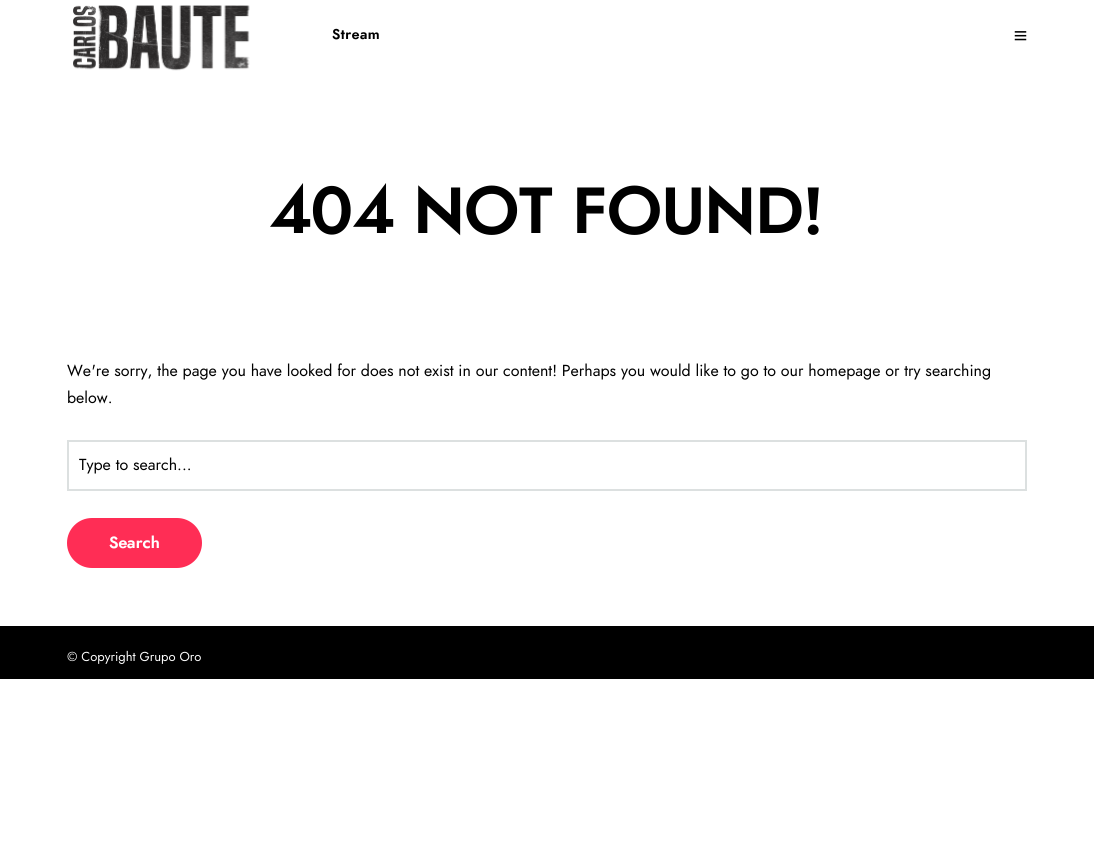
import math
import cairo

surface = cairo.ImageSurface(cairo.FORMAT_RGB24, 1094, 842)
ctx = cairo.Context(surface)
options = cairo.FontOptions()
options.set_hint_metrics(cairo.HINT_METRICS_OFF)
options.set_hint_style(cairo.HINT_STYLE_NONE)
ctx.set_font_options(options)
ctx.set_miter_limit(4)


def set_color(code):
    ctx.set_source_rgb(*(v / 255 for v in bytes.fromhex(code[-6:])))


def draw_text(x, y, s, family, size, color, bold=False, italic=False):
    ctx.select_font_face(family, cairo.FONT_SLANT_ITALIC if italic else cairo.FONT_SLANT_NORMAL, cairo.FONT_WEIGHT_BOLD if bold else cairo.FONT_WEIGHT_NORMAL)
    ctx.set_font_size(size)
    set_color(color)
    ctx.move_to(x, y)
    ctx.show_text(s)


def draw_spaced(x, y, s, letter, word):
    ctx.move_to(x, y)
    for ch in s:
        ctx.show_text(ch)
        ctx.rel_move_to(letter + word * (ch == ' '), 0)


def fill_rect(x, y, w, h, color):
    set_color(color)
    ctx.rectangle(x, y, w, h)
    ctx.fill()


def rounded_rect(x, y, w, h, r):
    ctx.new_sub_path()
    for i, (u, v) in enumerate([(x + w - r, y + h - r), (x + r, y + h - r), (x + r, y + r), (x + w - r, y + r)]):
        ctx.arc(u, v, r, i * math.pi / 2, (i + 1) * math.pi / 2)
    ctx.close_path()


def draw_image(path, x, y, w, h):
    ctx.save()
    ctx.set_source_surface(cairo.ImageSurface.create_from_png(path), x, y)
    ctx.rectangle(x, y, w, h)
    ctx.fill()
    ctx.restore()


set_color("#ffffff")
ctx.paint()
draw_image("assets/img1.png", 73, 5, 177, 66)
ctx.select_font_face("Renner", cairo.FONT_SLANT_NORMAL, cairo.FONT_WEIGHT_BOLD)
ctx.set_font_size(14)
set_color("#000000")
draw_spaced(332, 39, "Stream", 0.5, 0)
draw_image("assets/img2.png", 1014, 31, 13, 10)
ctx.set_font_size(65)
draw_spaced(270, 233, "404 NOT FOUND!", 0.5, 0)
draw_text(67, 376, "We're sorry, the page you have looked for does not exist in our content! Perhaps you would like to go to our homepage or try searching", "Renner", 16, "#000000")
draw_text(67, 403, "below.", "Renner", 16, "#000000")
ctx.rectangle(68, 441, 958, 49)
set_color("#dce0e0")
ctx.stroke()
draw_text(79, 470, "Type to search...", "Renner", 16, "#000000")
set_color("#ff2d55")
rounded_rect(68, 519, 133, 48, 24)
ctx.fill_preserve()
ctx.stroke()
draw_text(109, 548, "Search", "Renner", 16, "#ffffff", bold=True)
fill_rect(0, 626, 1094, 53, "#000000")
draw_text(67, 661, "© Copyright Grupo Oro", "Renner", 13, "#ffffff")
surface.write_to_png("output.png")
